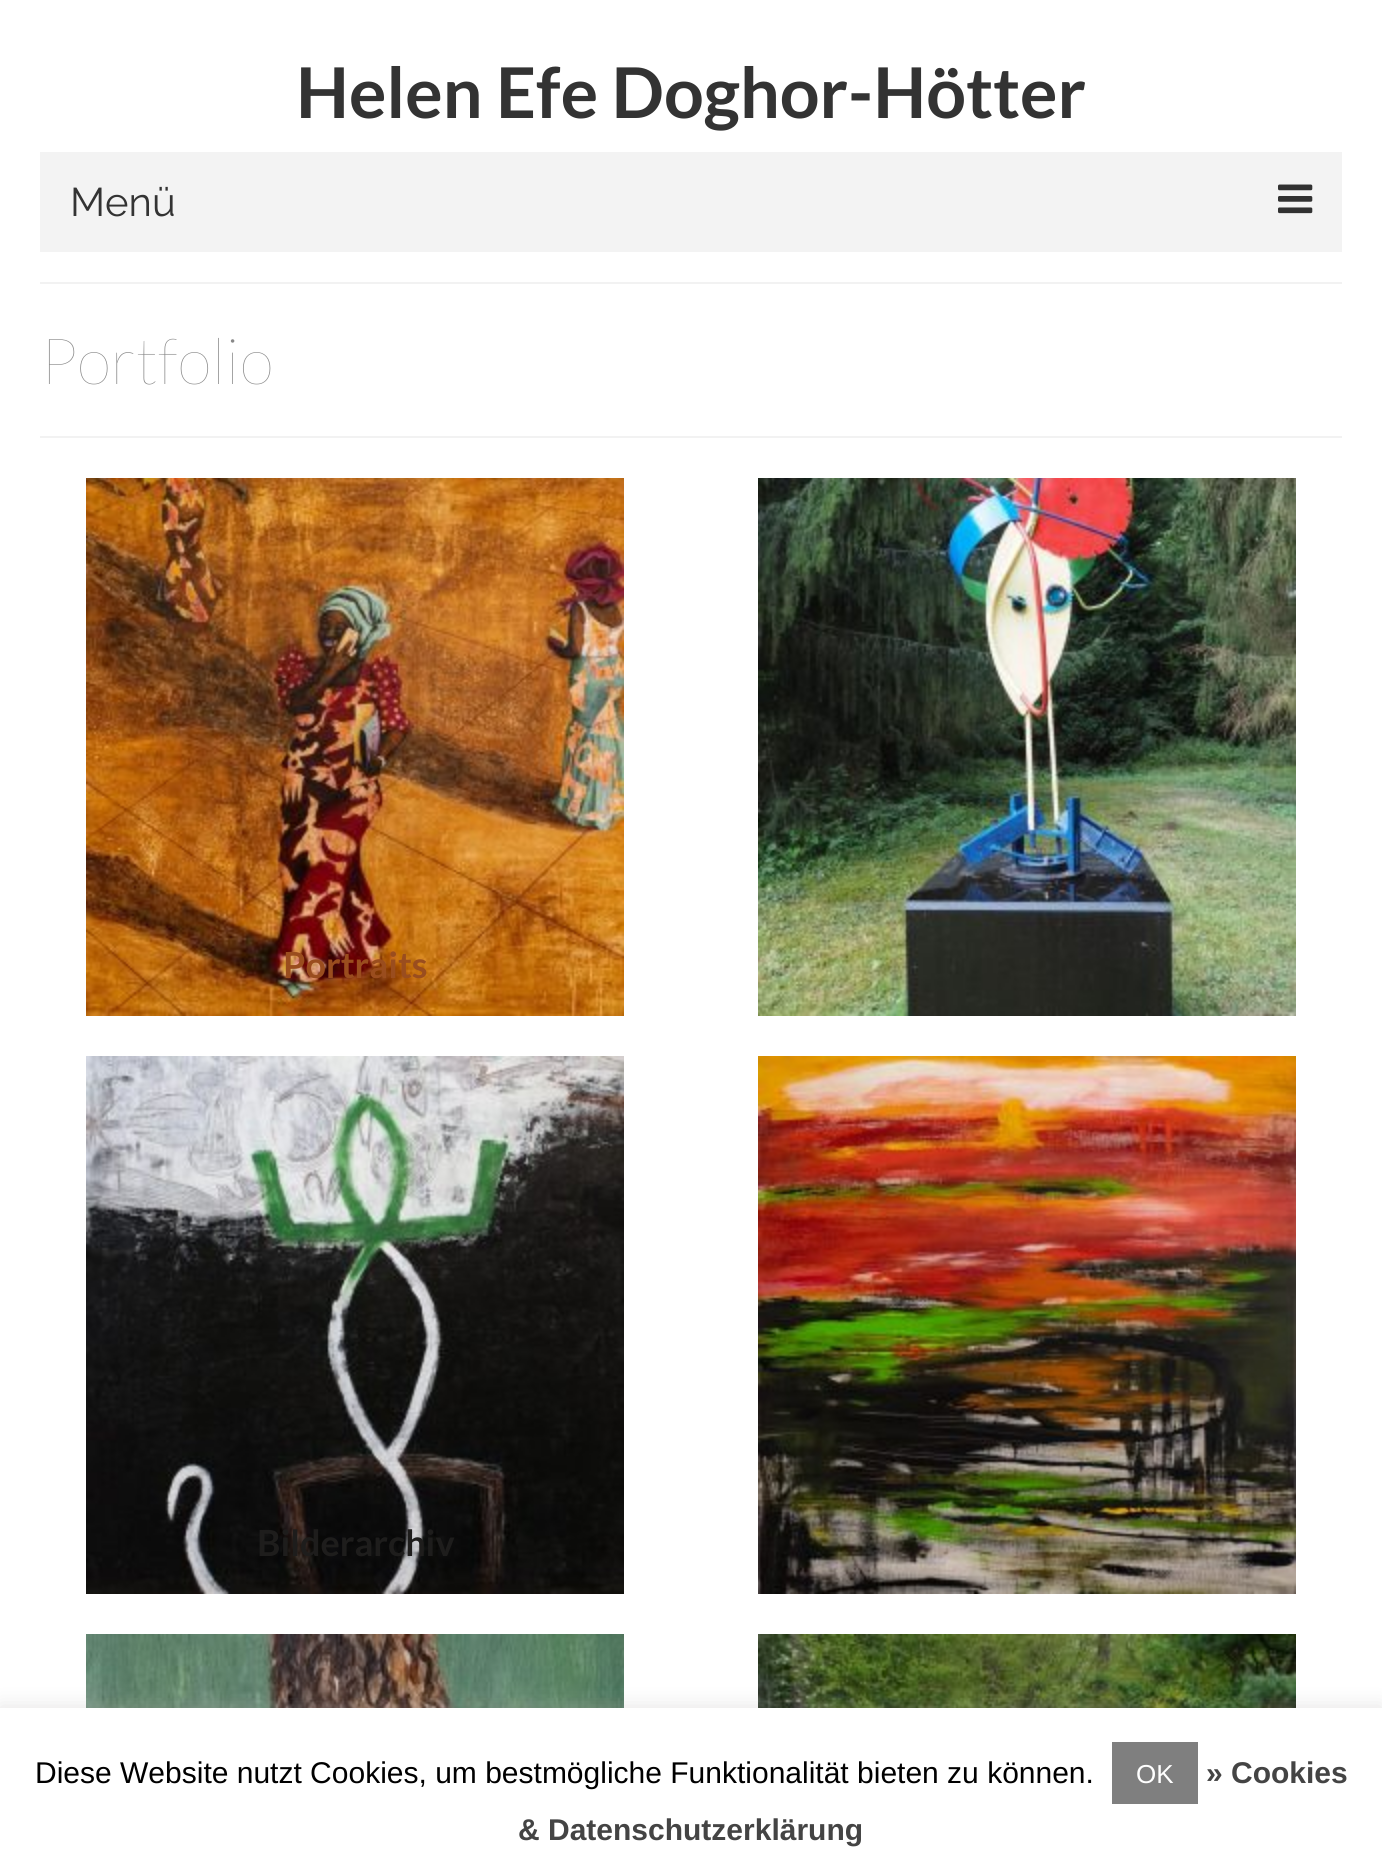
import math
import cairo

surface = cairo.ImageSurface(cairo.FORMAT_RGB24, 1382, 1873)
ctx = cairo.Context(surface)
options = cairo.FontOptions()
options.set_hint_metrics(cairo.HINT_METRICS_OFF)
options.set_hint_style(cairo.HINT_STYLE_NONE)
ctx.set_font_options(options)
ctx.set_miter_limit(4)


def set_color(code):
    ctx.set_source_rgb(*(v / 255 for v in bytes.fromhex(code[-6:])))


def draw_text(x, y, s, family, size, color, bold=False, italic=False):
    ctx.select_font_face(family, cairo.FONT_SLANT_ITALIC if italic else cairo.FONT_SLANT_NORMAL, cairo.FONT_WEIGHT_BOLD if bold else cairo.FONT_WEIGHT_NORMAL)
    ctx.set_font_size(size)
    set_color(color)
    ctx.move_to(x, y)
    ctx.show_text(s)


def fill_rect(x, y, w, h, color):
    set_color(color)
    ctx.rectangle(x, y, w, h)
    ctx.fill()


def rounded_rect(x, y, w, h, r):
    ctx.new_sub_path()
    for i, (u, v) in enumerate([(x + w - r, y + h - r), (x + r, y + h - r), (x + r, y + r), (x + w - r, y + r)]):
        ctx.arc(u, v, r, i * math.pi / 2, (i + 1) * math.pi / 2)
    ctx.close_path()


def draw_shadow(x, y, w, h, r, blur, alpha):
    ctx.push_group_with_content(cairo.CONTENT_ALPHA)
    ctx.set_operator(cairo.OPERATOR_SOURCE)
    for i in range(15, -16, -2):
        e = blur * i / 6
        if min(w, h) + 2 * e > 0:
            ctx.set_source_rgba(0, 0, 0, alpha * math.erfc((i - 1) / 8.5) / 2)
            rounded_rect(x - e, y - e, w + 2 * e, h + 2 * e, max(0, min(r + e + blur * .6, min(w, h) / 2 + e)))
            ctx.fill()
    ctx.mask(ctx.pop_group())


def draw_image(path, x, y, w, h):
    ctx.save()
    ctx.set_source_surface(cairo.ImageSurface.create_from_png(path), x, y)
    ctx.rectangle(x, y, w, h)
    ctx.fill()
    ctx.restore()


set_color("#ffffff")
ctx.paint()
draw_text(296, 118, "Helen Efe Doghor-Hötter", "Lato", 70, "#333333", bold=True)
fill_rect(40, 152, 1302, 100, "#f3f3f3")
draw_text(70, 216, "Menü", "Raleway", 40, "#333333")
draw_image("assets/img1.png", 1278, 184, 35, 30)
fill_rect(40, 282, 1302, 2, "#f2f2f2")
fill_rect(40, 436, 1302, 2, "#f2f2f2")
draw_text(40, 384, "Portfolio", "Lato Thin", 64, "#888888")
draw_image("assets/img2.png", 86, 478, 538, 538)
draw_text(283, 978, "Portraits", "Lato", 36, "#9a4d1e", bold=True)
draw_image("assets/img3.png", 758, 478, 538, 538)
draw_image("assets/img4.png", 86, 1056, 538, 538)
draw_text(257, 1556, "Bilderarchiv", "Lato", 36, "#1e1d1c", bold=True)
draw_image("assets/img5.png", 758, 1056, 538, 538)
draw_image("assets/img6.png", 86, 1634, 538, 74)
draw_image("assets/img7.png", 758, 1634, 538, 74)
set_color("#acabab")
draw_shadow(0, 1706, 1382, 166, 0, 10, 0.3)
fill_rect(0, 1708, 1382, 165, "#ffffff")
draw_text(35, 1783, "Diese Website nutzt Cookies, um bestmögliche Funktionalität bieten zu können.", "Liberation Sans", 30, "#000000")
fill_rect(1112, 1742, 86, 62, "#7f7f7f")
draw_text(1136, 1783, "OK", "Liberation Sans", 26, "#ffffff")
draw_text(1206, 1783, "» Cookies", "Liberation Sans", 30, "#444444", bold=True)
draw_text(518, 1840, "& Datenschutzerklärung", "Liberation Sans", 30, "#444444", bold=True)
surface.write_to_png("output.png")
